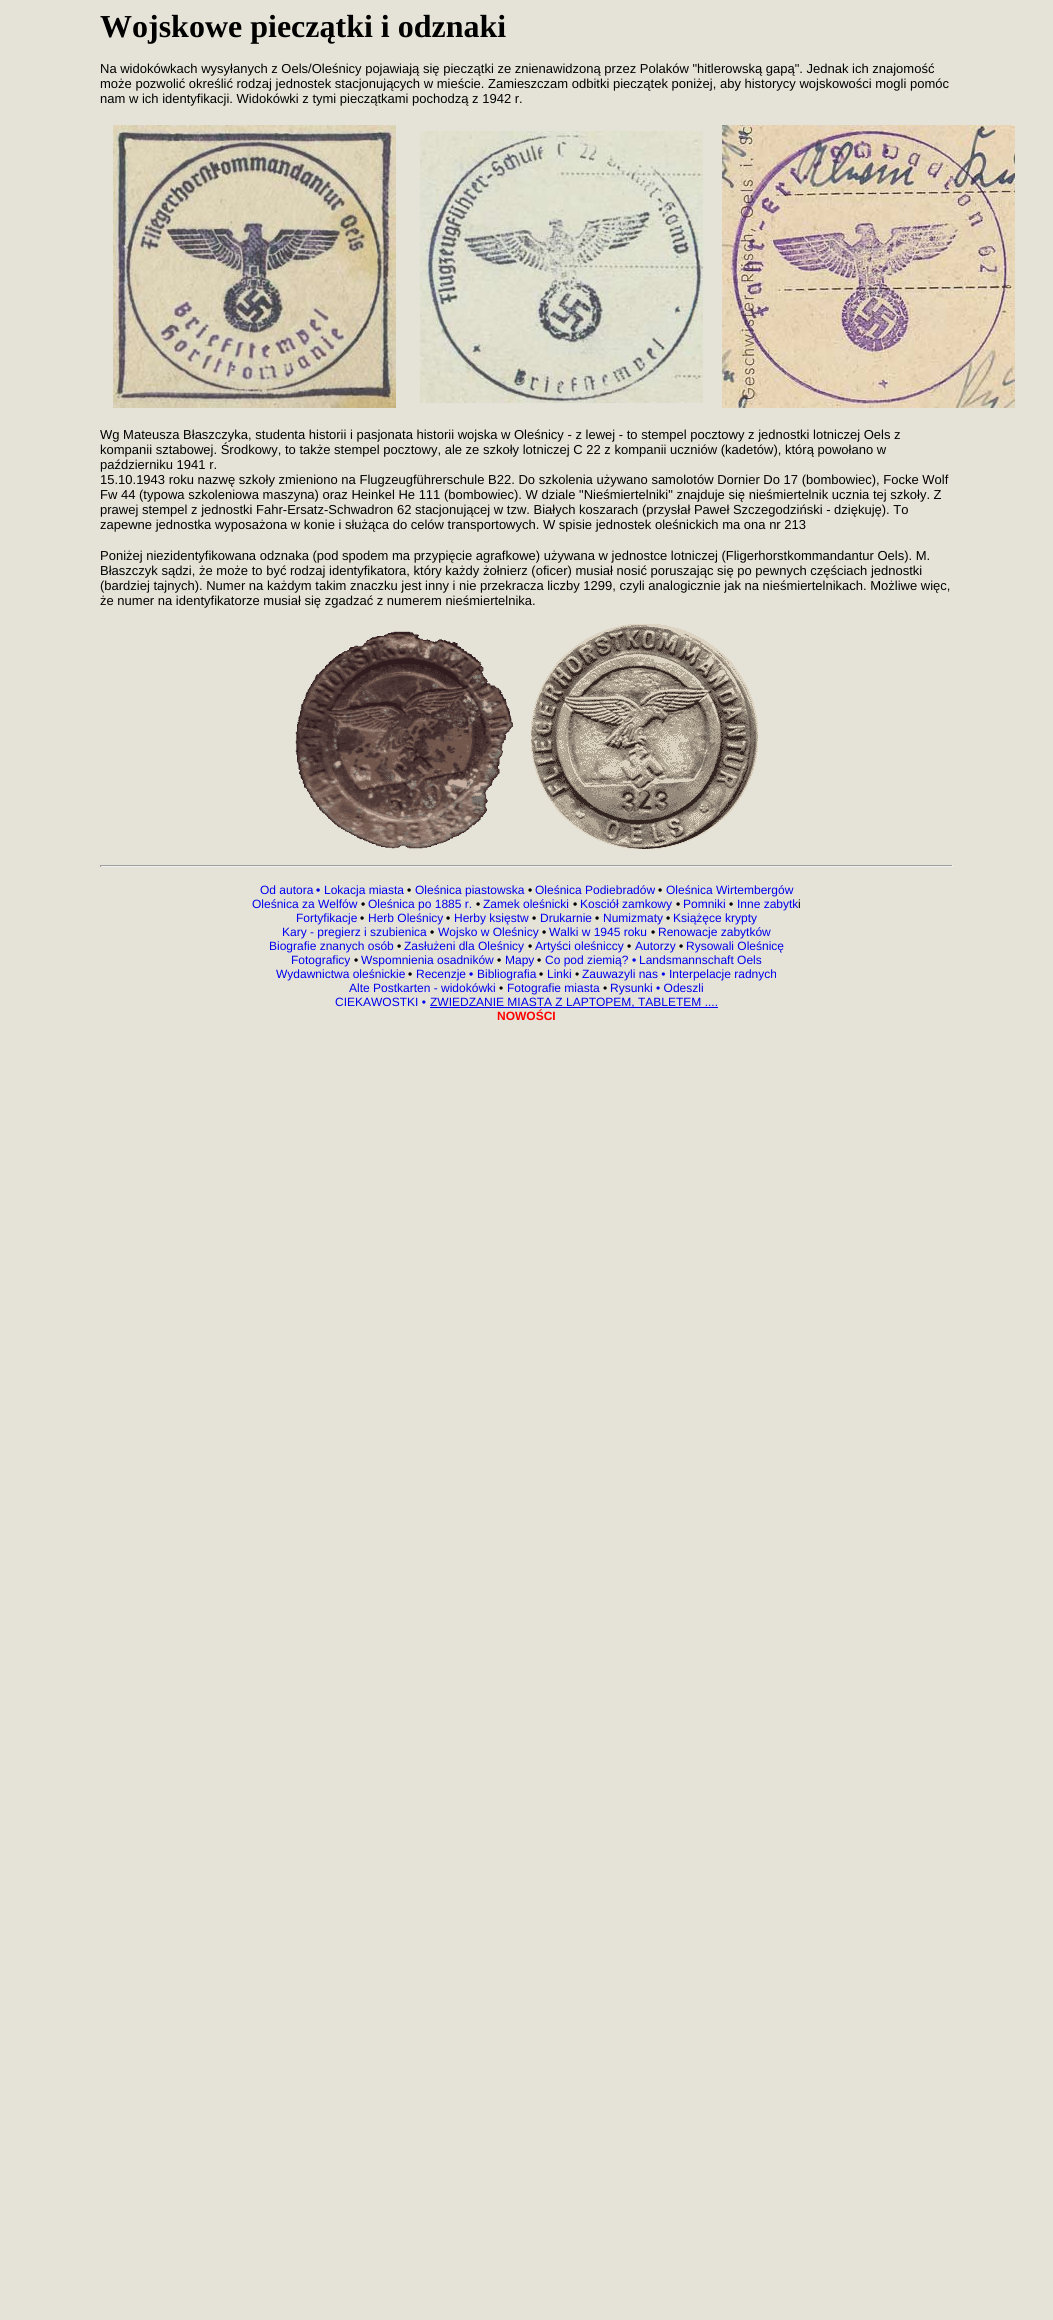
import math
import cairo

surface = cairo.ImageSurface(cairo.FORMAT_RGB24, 1053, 2320)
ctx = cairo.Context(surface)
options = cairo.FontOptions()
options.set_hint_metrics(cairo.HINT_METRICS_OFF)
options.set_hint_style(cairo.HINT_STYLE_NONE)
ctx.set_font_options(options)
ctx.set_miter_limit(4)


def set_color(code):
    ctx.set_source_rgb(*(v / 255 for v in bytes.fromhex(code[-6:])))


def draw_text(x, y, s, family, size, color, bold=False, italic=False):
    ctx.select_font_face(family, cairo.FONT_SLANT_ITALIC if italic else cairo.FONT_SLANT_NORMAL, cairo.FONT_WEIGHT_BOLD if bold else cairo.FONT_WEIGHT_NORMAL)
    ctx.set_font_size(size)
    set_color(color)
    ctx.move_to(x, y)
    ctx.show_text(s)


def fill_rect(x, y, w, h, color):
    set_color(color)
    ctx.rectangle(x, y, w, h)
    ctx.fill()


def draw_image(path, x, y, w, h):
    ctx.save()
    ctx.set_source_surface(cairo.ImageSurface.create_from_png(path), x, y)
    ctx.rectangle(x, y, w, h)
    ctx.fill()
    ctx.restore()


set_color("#e5e3d7")
ctx.paint()
draw_text(100, 37, "Wojskowe pieczątki i odznaki", "Liberation Serif", 32, "#000000", bold=True)
draw_text(100, 73, "Na widokówkach wysyłanych z Oels/Oleśnicy pojawiają się pieczątki ze znienawidzoną przez Polaków \"hitlerowską gapą\". Jednak ich znajomość", "Liberation Sans", 13, "#000000")
draw_text(100, 88, "może pozwolić określić rodzaj jednostek stacjonujących w mieście. Zamieszczam odbitki pieczątek poniżej, aby historycy wojskowości mogli pomóc", "Liberation Sans", 13, "#000000")
draw_text(100, 103, "nam w ich identyfikacji. Widokówki z tymi pieczątkami pochodzą z 1942 r.", "Liberation Sans", 13, "#000000")
draw_image("assets/img1.png", 113, 125, 283, 283)
draw_image("assets/img2.png", 420, 131, 283, 272)
draw_image("assets/img3.png", 722, 125, 293, 283)
draw_text(100, 439, "Wg Mateusza Błaszczyka, studenta historii i pasjonata historii wojska w Oleśnicy - z lewej - to stempel pocztowy z jednostki lotniczej Oels z", "Liberation Sans", 13, "#000000")
draw_text(100, 454, "kompanii sztabowej. Środkowy, to także stempel pocztowy, ale ze szkoły lotniczej C 22 z kompanii uczniów (kadetów), którą powołano w", "Liberation Sans", 13, "#000000")
draw_text(100, 469, "październiku 1941 r.", "Liberation Sans", 13, "#000000")
draw_text(100, 484, "15.10.1943 roku nazwę szkoły zmieniono na Flugzeugführerschule B22. Do szkolenia używano samolotów Dornier Do 17 (bombowiec), Focke Wolf", "Liberation Sans", 13, "#000000")
draw_text(100, 499, "Fw 44 (typowa szkoleniowa maszyna) oraz Heinkel He 111 (bombowiec). W dziale \"Nieśmiertelniki\" znajduje się nieśmiertelnik ucznia tej szkoły. Z", "Liberation Sans", 13, "#000000")
draw_text(100, 514, "prawej stempel z jednostki Fahr-Ersatz-Schwadron 62 stacjonującej w tzw. Białych koszarach (przysłał Paweł Szczegodziński - dziękuję). To", "Liberation Sans", 13, "#000000")
draw_text(100, 529, "zapewne jednostka wyposażona w konie i służąca do celów transportowych. W spisie jednostek oleśnickich ma ona nr 213", "Liberation Sans", 13, "#000000")
draw_text(100, 560, "Poniżej niezidentyfikowana odznaka (pod spodem ma przypięcie agrafkowe) używana w jednostce lotniczej (Fligerhorstkommandantur Oels). M.", "Liberation Sans", 13, "#000000")
draw_text(100, 575, "Błaszczyk sądzi, że może to być rodzaj identyfikatora, który każdy żołnierz (oficer) musiał nosić poruszając się po pewnych częściach jednostki", "Liberation Sans", 13, "#000000")
draw_text(100, 590, "(bardziej tajnych). Numer na każdym takim znaczku jest inny i nie przekracza liczby 1299, czyli analogicznie jak na nieśmiertelnikach. Możliwe więc,", "Liberation Sans", 13, "#000000")
draw_text(100, 605, "że numer na identyfikatorze musiał się zgadzać z numerem nieśmiertelnika.", "Liberation Sans", 13, "#000000")
draw_image("assets/img4.png", 295, 631, 218, 218)
draw_image("assets/img5.png", 531, 624, 227, 225)
fill_rect(100, 865, 853, 1, "#9f9f9f")
fill_rect(952, 865, 1, 2, "#eeeeee")
fill_rect(100, 866, 853, 1, "#eeeeee")
fill_rect(100, 865, 1, 2, "#9f9f9f")
draw_text(260, 894, "Od autora", "Liberation Sans", 12, "#0000ee")
draw_text(316, 894, "•", "Liberation Sans", 12, "#0000ee", bold=True)
draw_text(324, 894, "Lokacja miasta", "Liberation Sans", 12, "#0000ee")
draw_text(407, 894, "•", "Liberation Sans", 12, "#000000", bold=True)
draw_text(415, 894, "Oleśnica piastowska", "Liberation Sans", 12, "#0000ee")
draw_text(528, 894, "•", "Liberation Sans", 12, "#000000", bold=True)
draw_text(535, 894, "Oleśnica Podiebradów", "Liberation Sans", 12, "#0000ee")
draw_text(658, 894, "•", "Liberation Sans", 12, "#000000", bold=True)
draw_text(666, 894, "Oleśnica Wirtembergów", "Liberation Sans", 12, "#0000ee")
draw_text(252, 908, "Oleśnica za Welfów", "Liberation Sans", 12, "#0000ee")
draw_text(361, 908, "•", "Liberation Sans", 12, "#000000", bold=True)
draw_text(368, 908, "Oleśnica po 1885 r.", "Liberation Sans", 12, "#0000ee")
draw_text(476, 908, "•", "Liberation Sans", 12, "#000000", bold=True)
draw_text(483, 908, "Zamek oleśnicki", "Liberation Sans", 12, "#0000ee")
draw_text(573, 908, "•", "Liberation Sans", 12, "#000000", bold=True)
draw_text(580, 908, "Kosciół zamkowy", "Liberation Sans", 12, "#0000ee")
draw_text(676, 908, "•", "Liberation Sans", 12, "#000000", bold=True)
draw_text(683, 908, "Pomniki", "Liberation Sans", 12, "#0000ee")
draw_text(729, 908, "•", "Liberation Sans", 12, "#000000", bold=True)
draw_text(737, 908, "Inne zabytk", "Liberation Sans", 12, "#0000ee")
draw_text(798, 908, "i", "Liberation Sans", 12, "#000000")
draw_text(296, 922, "Fortyfikacje", "Liberation Sans", 12, "#0000ee")
draw_text(360, 922, "•", "Liberation Sans", 12, "#000000", bold=True)
draw_text(368, 922, "Herb Oleśnicy", "Liberation Sans", 12, "#0000ee")
draw_text(446, 922, "•", "Liberation Sans", 12, "#000000", bold=True)
draw_text(454, 922, "Herby księstw", "Liberation Sans", 12, "#0000ee")
draw_text(532, 922, "•", "Liberation Sans", 12, "#000000", bold=True)
draw_text(540, 922, "Drukarnie", "Liberation Sans", 12, "#0000ee")
draw_text(595, 922, "•", "Liberation Sans", 12, "#000000", bold=True)
draw_text(603, 922, "Numizmaty", "Liberation Sans", 12, "#0000ee")
draw_text(666, 922, "•", "Liberation Sans", 12, "#000000", bold=True)
draw_text(673, 922, "Książęce krypty", "Liberation Sans", 12, "#0000ee")
draw_text(282, 936, "Kary - pregierz i szubienica", "Liberation Sans", 12, "#0000ee")
draw_text(430, 936, "•", "Liberation Sans", 12, "#000000", bold=True)
draw_text(438, 936, "Wojsko w Oleśnicy", "Liberation Sans", 12, "#0000ee")
draw_text(542, 936, "•", "Liberation Sans", 12, "#000000", bold=True)
draw_text(549, 936, "Walki w 1945 roku", "Liberation Sans", 12, "#0000ee")
draw_text(651, 936, "•", "Liberation Sans", 12, "#000000", bold=True)
draw_text(658, 936, "Renowacje zabytków", "Liberation Sans", 12, "#0000ee")
draw_text(269, 950, "Biografie znanych osób", "Liberation Sans", 12, "#0000ee")
draw_text(397, 950, "•", "Liberation Sans", 12, "#000000", bold=True)
draw_text(404, 950, "Zasłużeni dla Oleśnicy", "Liberation Sans", 12, "#0000ee")
draw_text(528, 950, "•", "Liberation Sans", 12, "#000000", bold=True)
draw_text(535, 950, "Artyści oleśniccy", "Liberation Sans", 12, "#0000ee")
draw_text(627, 950, "•", "Liberation Sans", 12, "#000000", bold=True)
draw_text(635, 950, "Autorzy", "Liberation Sans", 12, "#0000ee")
draw_text(679, 950, "•", "Liberation Sans", 12, "#000000", bold=True)
draw_text(686, 950, "Rysowali Oleśnicę", "Liberation Sans", 12, "#0000ee")
draw_text(291, 964, "Fotograficy", "Liberation Sans", 12, "#0000ee")
draw_text(354, 964, "•", "Liberation Sans", 12, "#000000", bold=True)
draw_text(361, 964, "Wspomnienia osadników", "Liberation Sans", 12, "#0000ee")
draw_text(497, 964, "•", "Liberation Sans", 12, "#000000", bold=True)
draw_text(505, 964, "Mapy", "Liberation Sans", 12, "#0000ee")
draw_text(537, 964, "•", "Liberation Sans", 12, "#000000", bold=True)
draw_text(545, 964, "Co pod ziemią?", "Liberation Sans", 12, "#0000ee")
draw_text(632, 964, "•", "Liberation Sans", 12, "#0000ee", bold=True)
draw_text(639, 964, "Landsmannschaft Oels", "Liberation Sans", 12, "#0000ee")
draw_text(276, 978, "Wydawnictwa oleśnickie", "Liberation Sans", 12, "#0000ee")
draw_text(408, 978, "•", "Liberation Sans", 12, "#000000", bold=True)
draw_text(416, 978, "Recenzje", "Liberation Sans", 12, "#0000ee")
draw_text(469, 978, "•", "Liberation Sans", 12, "#0000ee", bold=True)
draw_text(477, 978, "Bibliografia", "Liberation Sans", 12, "#0000ee")
draw_text(539, 978, "•", "Liberation Sans", 12, "#000000", bold=True)
draw_text(547, 978, "Linki", "Liberation Sans", 12, "#0000ee")
draw_text(575, 978, "•", "Liberation Sans", 12, "#000000")
draw_text(582, 978, "Zauwazyli nas • Interpelacje radnych", "Liberation Sans", 12, "#0000ee")
draw_text(349, 992, "Alte Postkarten - widokówki", "Liberation Sans", 12, "#0000ee")
draw_text(499, 992, "•", "Liberation Sans", 12, "#000000")
draw_text(507, 992, "Fotografie miasta", "Liberation Sans", 12, "#0000ee")
draw_text(603, 992, "•", "Liberation Sans", 12, "#000000")
draw_text(610, 992, "Rysunki • Odeszli", "Liberation Sans", 12, "#0000ee")
draw_text(335, 1006, "CIEKAWOSTKI •", "Liberation Sans", 12, "#0000ee")
fill_rect(430, 1007, 288, 1, "#0000ee")
draw_text(430, 1006, "ZWIEDZANIE MIASTA Z LAPTOPEM, TABLETEM ....", "Liberation Sans", 12, "#0000ee")
draw_text(497, 1020, "NOWOŚCI", "Liberation Sans", 12, "#ff0000", bold=True)
surface.write_to_png("output.png")
